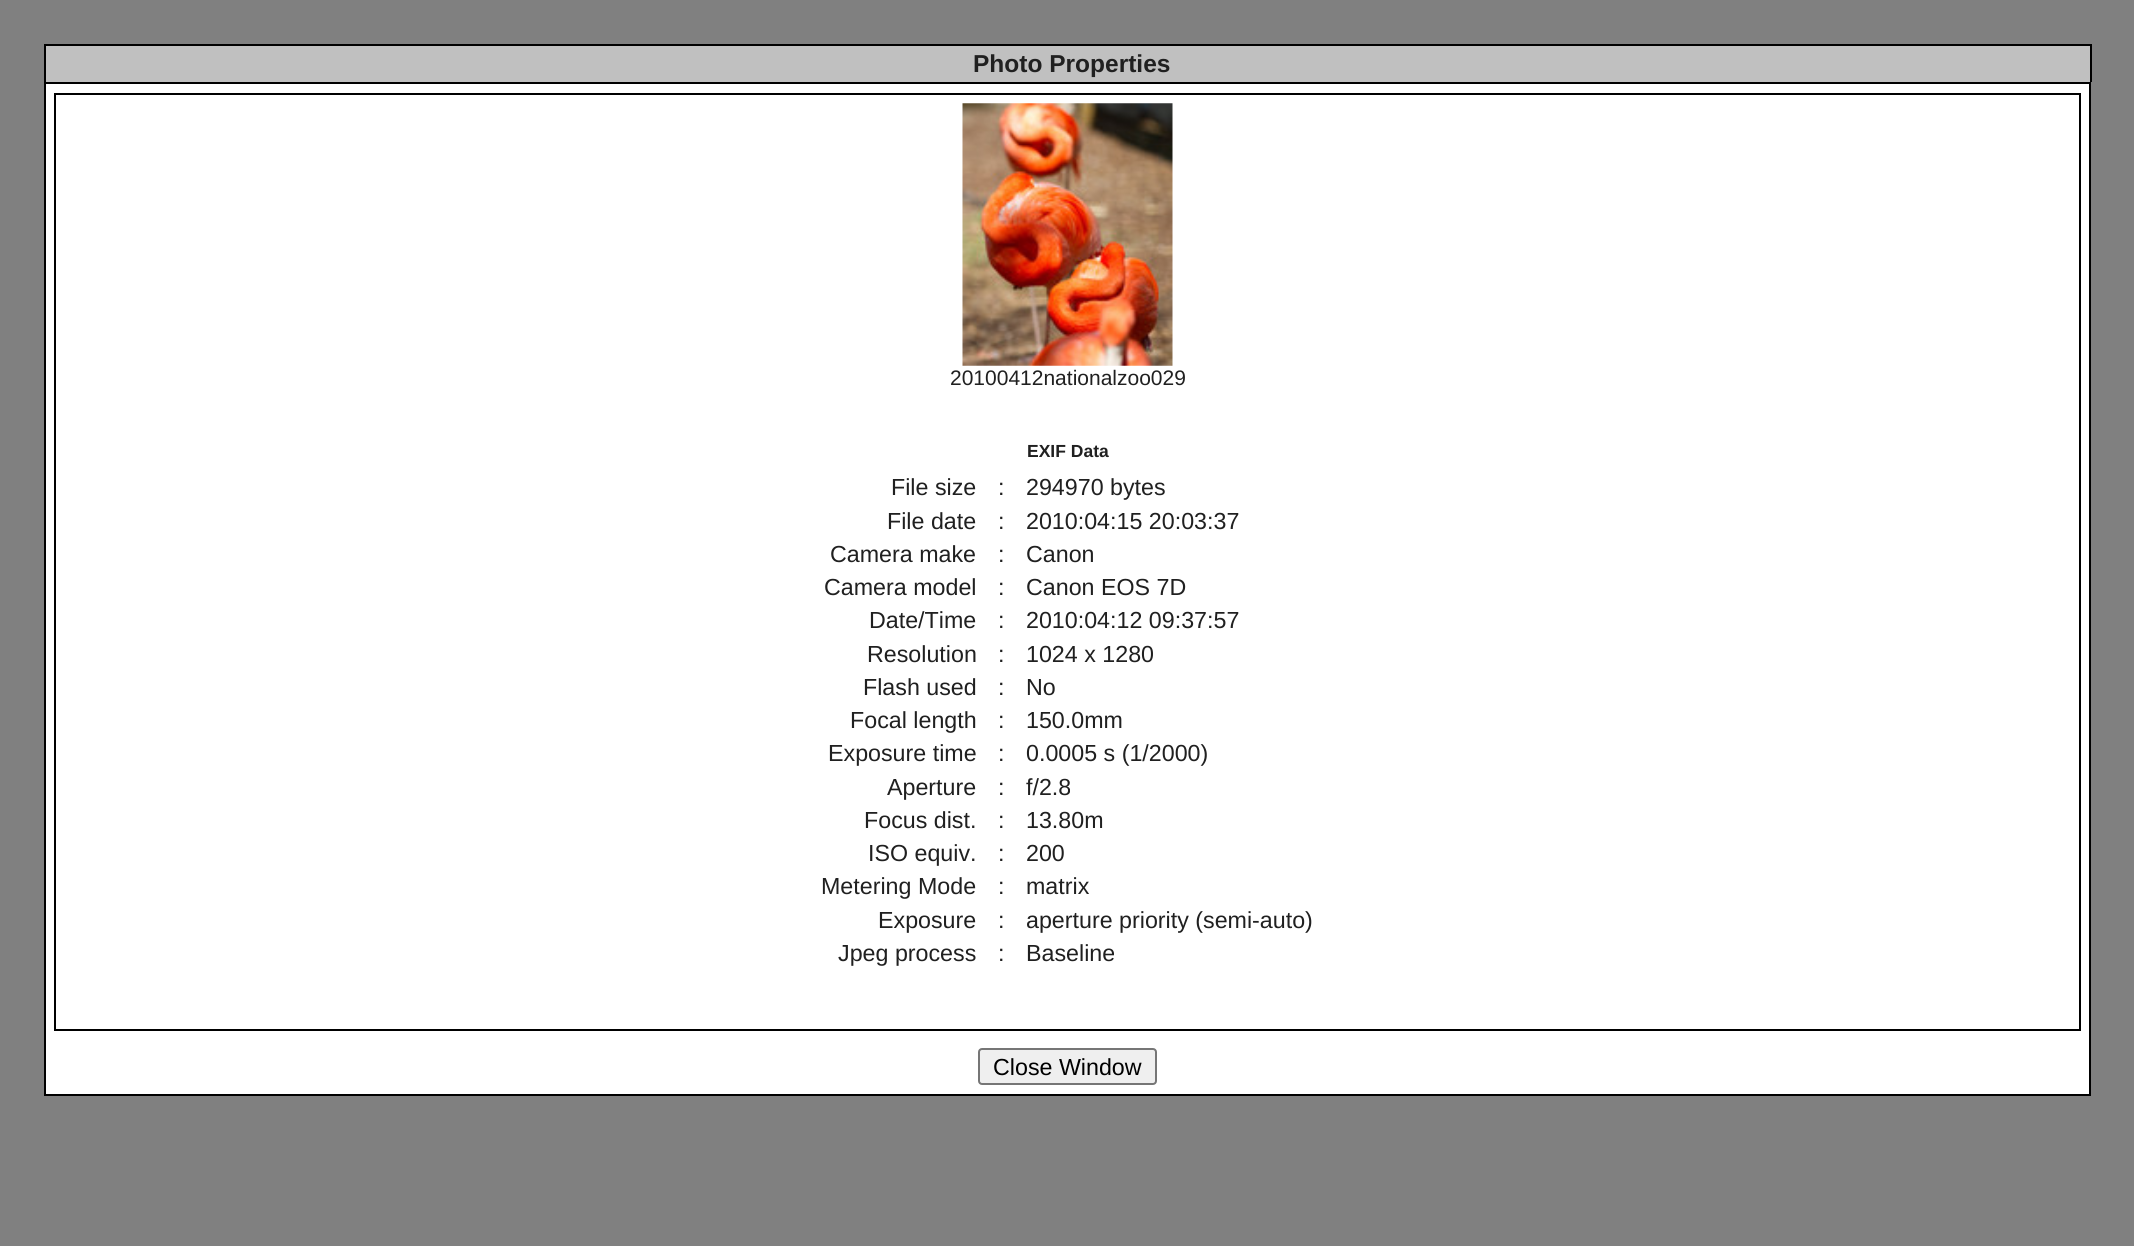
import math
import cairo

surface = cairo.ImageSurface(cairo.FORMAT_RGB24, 2134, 1246)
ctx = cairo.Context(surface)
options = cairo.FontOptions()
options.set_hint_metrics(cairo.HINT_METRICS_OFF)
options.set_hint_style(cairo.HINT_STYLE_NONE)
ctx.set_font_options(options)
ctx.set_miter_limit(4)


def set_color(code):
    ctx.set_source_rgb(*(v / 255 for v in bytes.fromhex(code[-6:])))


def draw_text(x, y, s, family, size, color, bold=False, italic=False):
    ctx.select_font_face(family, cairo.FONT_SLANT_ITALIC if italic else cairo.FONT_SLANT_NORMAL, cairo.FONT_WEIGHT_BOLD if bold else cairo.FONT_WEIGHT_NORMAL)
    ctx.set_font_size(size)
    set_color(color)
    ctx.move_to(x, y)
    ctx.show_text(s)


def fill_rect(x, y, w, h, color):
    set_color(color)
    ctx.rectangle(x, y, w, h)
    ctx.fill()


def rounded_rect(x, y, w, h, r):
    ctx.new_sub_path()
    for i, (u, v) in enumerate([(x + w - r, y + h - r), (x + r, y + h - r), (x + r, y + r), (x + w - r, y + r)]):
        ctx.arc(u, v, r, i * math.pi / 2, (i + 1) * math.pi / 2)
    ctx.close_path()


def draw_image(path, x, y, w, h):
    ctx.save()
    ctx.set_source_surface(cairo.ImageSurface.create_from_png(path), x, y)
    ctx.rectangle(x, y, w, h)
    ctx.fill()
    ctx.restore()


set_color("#808080")
ctx.paint()
fill_rect(46, 46, 2044, 36, "#c0c0c0")
fill_rect(44, 44, 2047, 2, "#000000")
fill_rect(2090, 44, 2, 38, "#000000")
fill_rect(44, 44, 2, 38, "#000000")
draw_text(973, 72, "Photo Properties", "Liberation Sans", 24.5, "#202020", bold=True)
set_color("#ffffff")
ctx.rectangle(45, 83, 2045, 1012)
ctx.fill_preserve()
set_color("#000000")
ctx.stroke()
ctx.rectangle(55, 94, 2025, 936)
ctx.stroke()
draw_image("assets/img1.png", 962, 103, 211, 263)
draw_text(950, 385, "20100412nationalzoo029", "Liberation Sans", 21, "#202020")
draw_text(1027, 457, "EXIF Data", "Liberation Sans", 17.5, "#202020", bold=True)
draw_text(891, 495, "File size", "Liberation Sans", 23.25, "#202020")
draw_text(998, 495, ":", "Liberation Sans", 23.25, "#202020")
draw_text(1026, 495, "294970 bytes", "Liberation Sans", 23.25, "#202020")
draw_text(887, 529, "File date", "Liberation Sans", 23.25, "#202020")
draw_text(998, 529, ":", "Liberation Sans", 23.25, "#202020")
draw_text(1026, 529, "2010:04:15 20:03:37", "Liberation Sans", 23.25, "#202020")
draw_text(830, 562, "Camera make", "Liberation Sans", 23.25, "#202020")
draw_text(998, 562, ":", "Liberation Sans", 23.25, "#202020")
draw_text(1026, 562, "Canon", "Liberation Sans", 23.25, "#202020")
draw_text(824, 595, "Camera model", "Liberation Sans", 23.25, "#202020")
draw_text(998, 595, ":", "Liberation Sans", 23.25, "#202020")
draw_text(1026, 595, "Canon EOS 7D", "Liberation Sans", 23.25, "#202020")
draw_text(869, 628, "Date/Time", "Liberation Sans", 23.25, "#202020")
draw_text(998, 628, ":", "Liberation Sans", 23.25, "#202020")
draw_text(1026, 628, "2010:04:12 09:37:57", "Liberation Sans", 23.25, "#202020")
draw_text(867, 662, "Resolution", "Liberation Sans", 23.25, "#202020")
draw_text(998, 662, ":", "Liberation Sans", 23.25, "#202020")
draw_text(1026, 662, "1024 x 1280", "Liberation Sans", 23.25, "#202020")
draw_text(863, 695, "Flash used", "Liberation Sans", 23.25, "#202020")
draw_text(998, 695, ":", "Liberation Sans", 23.25, "#202020")
draw_text(1026, 695, "No", "Liberation Sans", 23.25, "#202020")
draw_text(850, 728, "Focal length", "Liberation Sans", 23.25, "#202020")
draw_text(998, 728, ":", "Liberation Sans", 23.25, "#202020")
draw_text(1026, 728, "150.0mm", "Liberation Sans", 23.25, "#202020")
draw_text(828, 761, "Exposure time", "Liberation Sans", 23.25, "#202020")
draw_text(998, 761, ":", "Liberation Sans", 23.25, "#202020")
draw_text(1026, 761, "0.0005 s (1/2000)", "Liberation Sans", 23.25, "#202020")
draw_text(887, 795, "Aperture", "Liberation Sans", 23.25, "#202020")
draw_text(998, 795, ":", "Liberation Sans", 23.25, "#202020")
draw_text(1026, 795, "f/2.8", "Liberation Sans", 23.25, "#202020")
draw_text(864, 828, "Focus dist.", "Liberation Sans", 23.25, "#202020")
draw_text(998, 828, ":", "Liberation Sans", 23.25, "#202020")
draw_text(1026, 828, "13.80m", "Liberation Sans", 23.25, "#202020")
draw_text(868, 861, "ISO equiv.", "Liberation Sans", 23.25, "#202020")
draw_text(998, 861, ":", "Liberation Sans", 23.25, "#202020")
draw_text(1026, 861, "200", "Liberation Sans", 23.25, "#202020")
draw_text(821, 894, "Metering Mode", "Liberation Sans", 23.25, "#202020")
draw_text(998, 894, ":", "Liberation Sans", 23.25, "#202020")
draw_text(1026, 894, "matrix", "Liberation Sans", 23.25, "#202020")
draw_text(878, 928, "Exposure", "Liberation Sans", 23.25, "#202020")
draw_text(998, 928, ":", "Liberation Sans", 23.25, "#202020")
draw_text(1026, 928, "aperture priority (semi-auto)", "Liberation Sans", 23.25, "#202020")
draw_text(838, 961, "Jpeg process", "Liberation Sans", 23.25, "#202020")
draw_text(998, 961, ":", "Liberation Sans", 23.25, "#202020")
draw_text(1026, 961, "Baseline", "Liberation Sans", 23.25, "#202020")
set_color("#efefef")
rounded_rect(979, 1049, 177, 35, 3)
ctx.fill_preserve()
set_color("#767676")
ctx.stroke()
draw_text(993, 1075, "Close Window", "Liberation Sans", 23.25, "#000000")
surface.write_to_png("output.png")
